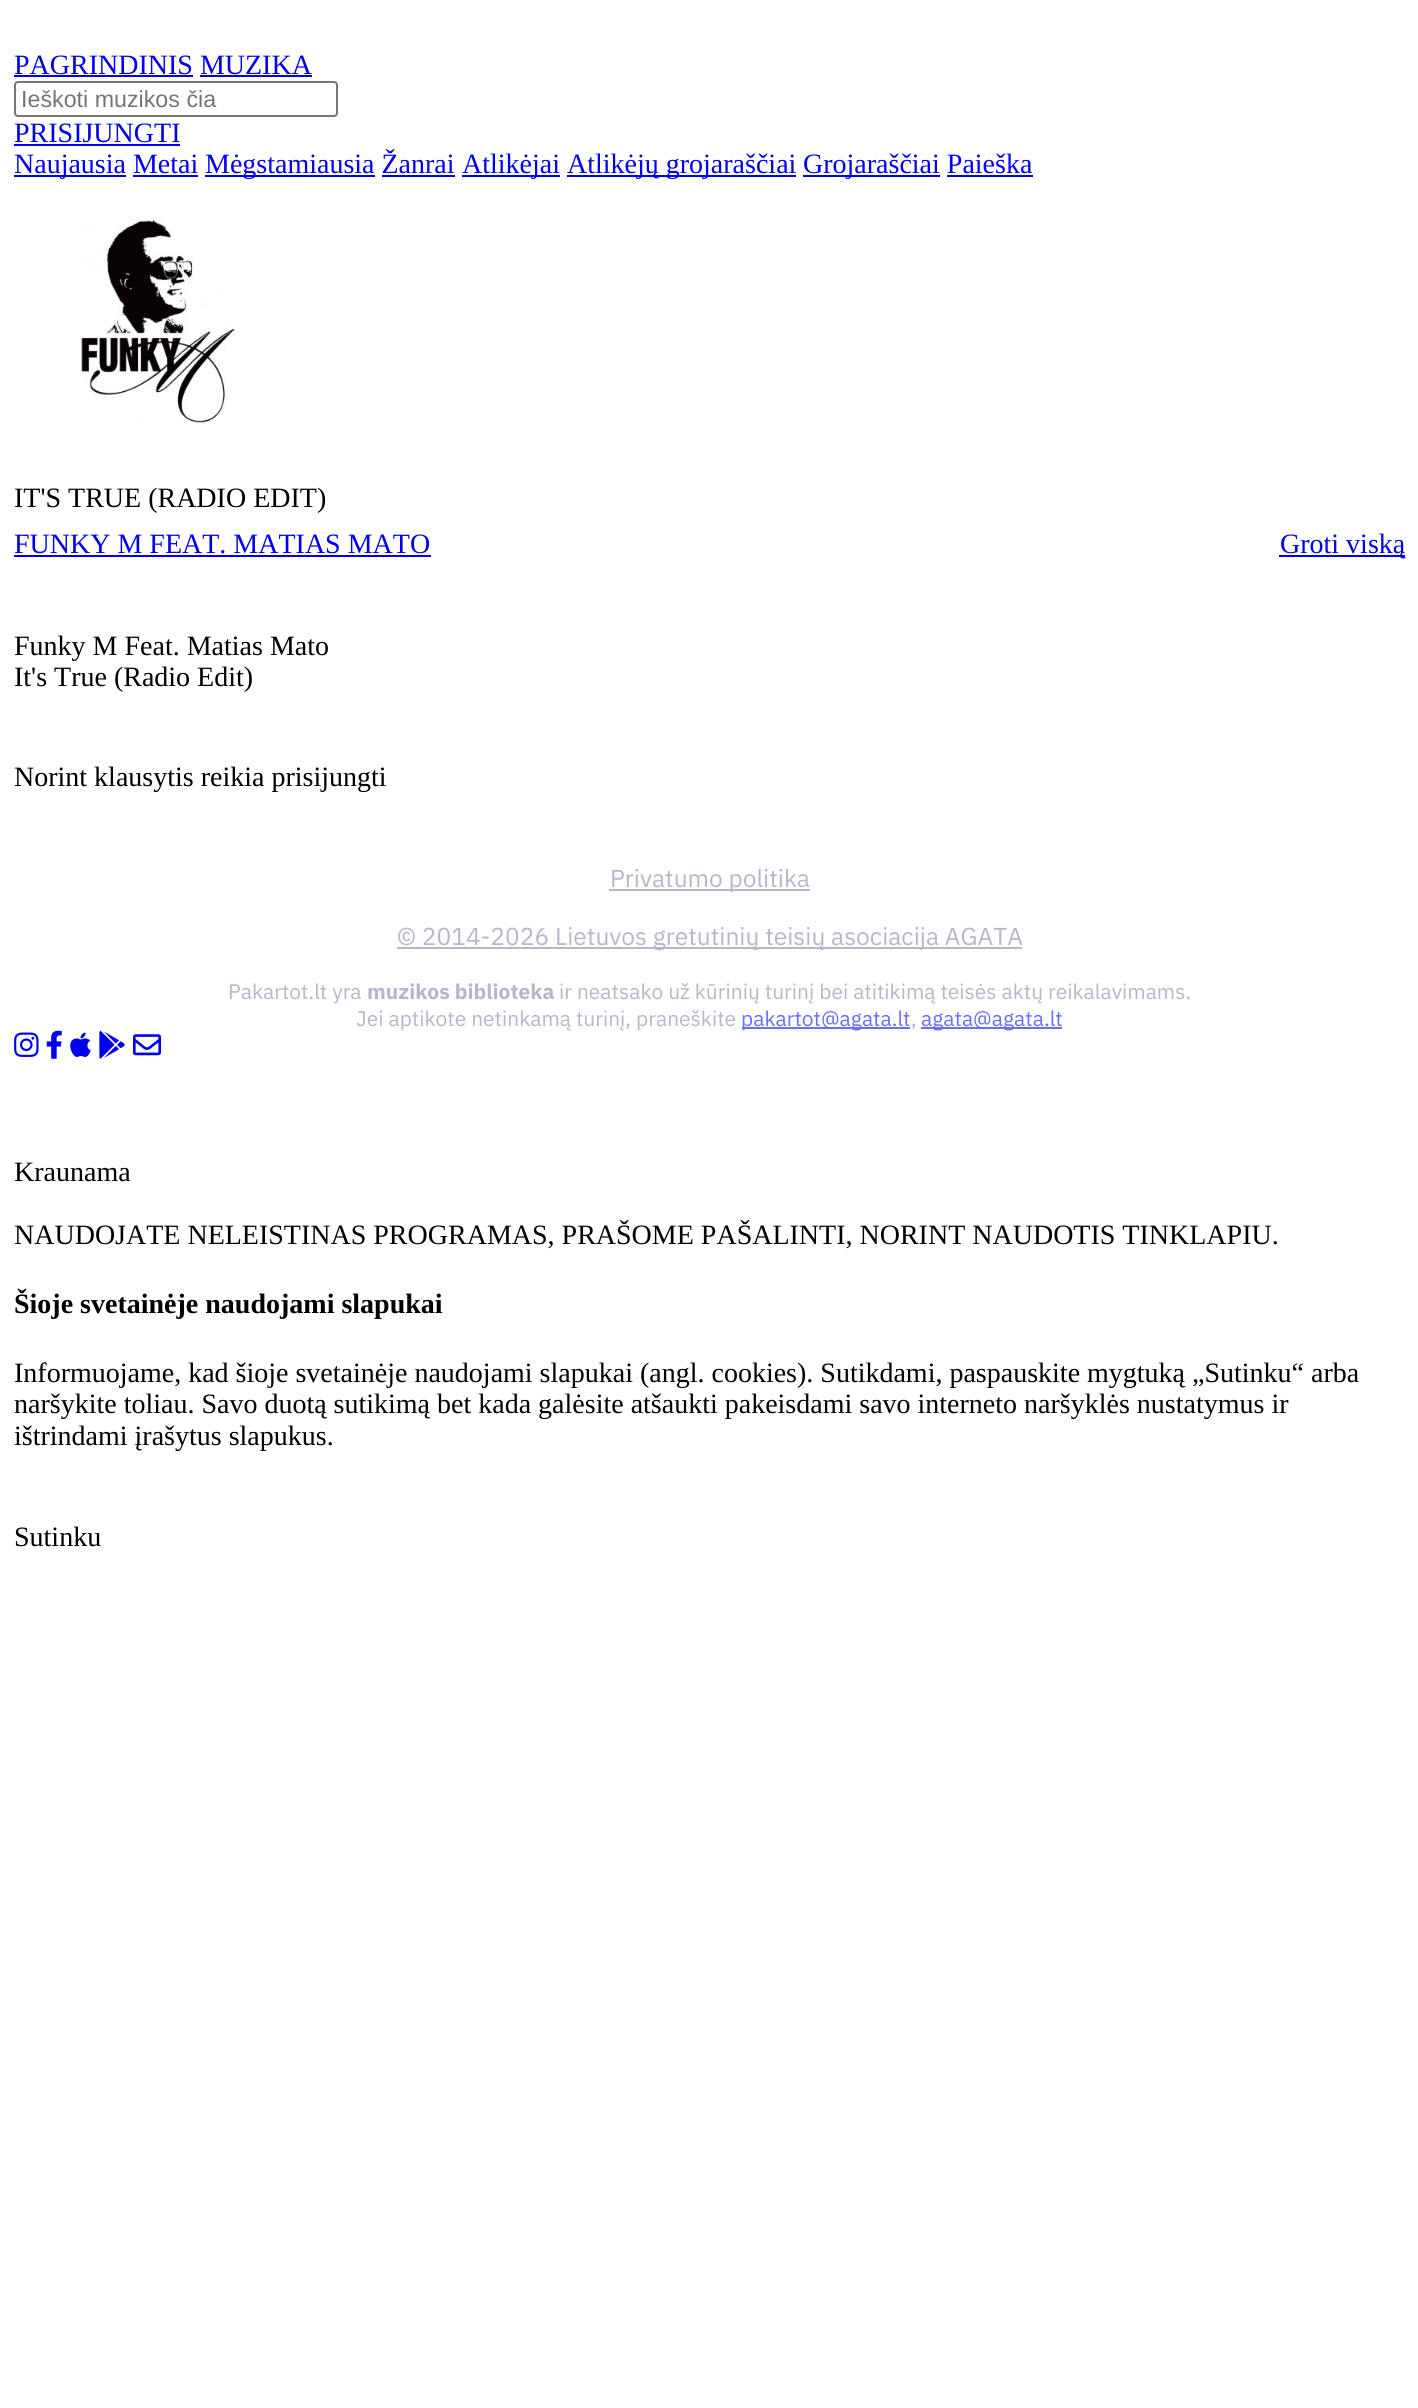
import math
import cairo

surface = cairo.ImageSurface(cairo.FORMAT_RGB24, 1418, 2408)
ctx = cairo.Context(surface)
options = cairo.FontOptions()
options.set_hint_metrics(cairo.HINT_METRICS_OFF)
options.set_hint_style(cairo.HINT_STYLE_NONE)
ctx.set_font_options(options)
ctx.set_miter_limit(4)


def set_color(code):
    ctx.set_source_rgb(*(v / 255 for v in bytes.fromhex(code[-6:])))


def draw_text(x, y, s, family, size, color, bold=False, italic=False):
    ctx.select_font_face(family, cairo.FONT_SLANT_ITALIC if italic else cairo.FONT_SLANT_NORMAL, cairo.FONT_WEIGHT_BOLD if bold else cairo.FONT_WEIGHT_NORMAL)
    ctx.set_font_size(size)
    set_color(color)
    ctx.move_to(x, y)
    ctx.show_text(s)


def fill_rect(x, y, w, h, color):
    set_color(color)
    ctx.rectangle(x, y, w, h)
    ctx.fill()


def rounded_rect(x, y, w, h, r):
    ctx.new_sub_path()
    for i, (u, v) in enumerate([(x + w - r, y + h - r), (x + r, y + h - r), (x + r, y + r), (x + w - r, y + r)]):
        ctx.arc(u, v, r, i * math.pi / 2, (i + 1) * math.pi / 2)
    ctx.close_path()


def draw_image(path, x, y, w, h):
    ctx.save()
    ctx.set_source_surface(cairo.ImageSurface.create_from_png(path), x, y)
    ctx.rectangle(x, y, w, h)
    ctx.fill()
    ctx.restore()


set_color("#ffffff")
ctx.paint()
draw_text(14, 74, "PAGRINDINIS MUZIKA", "Liberation Serif", 28, "#0000ee")
fill_rect(14, 75, 179, 2, "#0000ee")
fill_rect(200, 75, 112, 2, "#0000ee")
rounded_rect(15, 82, 322, 34, 3)
set_color("#767676")
ctx.stroke()
draw_text(21, 107, "Ieškoti muzikos čia", "Liberation Sans", 23.25, "#757575")
draw_text(14, 142, "PRISIJUNGTI", "Liberation Serif", 28, "#0000ee")
fill_rect(14, 144, 166, 2, "#0000ee")
fill_rect(14, 175, 112, 2, "#0000ee")
draw_text(14, 173, "Naujausia Metai", "Liberation Serif", 28, "#0000ee")
fill_rect(205, 175, 170, 2, "#0000ee")
draw_text(205, 173, "Mėgstamiausia Žanrai", "Liberation Serif", 28, "#0000ee")
fill_rect(462, 175, 98, 2, "#0000ee")
draw_text(462, 173, "Atlikėjai", "Liberation Serif", 28, "#0000ee")
fill_rect(567, 175, 229, 2, "#0000ee")
draw_text(567, 173, "Atlikėjų grojaraščiai", "Liberation Serif", 28, "#0000ee")
fill_rect(803, 175, 137, 2, "#0000ee")
draw_text(803, 173, "Grojaraščiai Paieška", "Liberation Serif", 28, "#0000ee")
fill_rect(133, 175, 65, 2, "#0000ee")
fill_rect(382, 175, 73, 2, "#0000ee")
fill_rect(947, 175, 86, 2, "#0000ee")
draw_image("assets/img1.png", 80, 219, 158, 206)
draw_text(14, 507, "IT'S TRUE (RADIO EDIT)", "Liberation Serif", 28, "#000000")
draw_text(14, 553, "FUNKY M FEAT. MATIAS MATO", "Liberation Serif", 28, "#0000ee")
fill_rect(14, 555, 417, 2, "#0000ee")
fill_rect(1279, 555, 126, 2, "#0000ee")
draw_text(1280, 553, "Groti viską", "Liberation Serif", 28, "#0000ee")
draw_text(14, 655, "Funky M Feat. Matias Mato", "Liberation Serif", 28, "#000000")
draw_text(14, 686, "It's True (Radio Edit)", "Liberation Serif", 28, "#000000")
draw_text(14, 786, "Norint klausytis reikia prisijungti", "Liberation Serif", 28, "#000000")
fill_rect(609, 889, 201, 2, "#b5b8c9")
draw_text(610, 887, "Privatumo politika", "IBM Plex Sans", 24.5, "#b5b8c9")
fill_rect(397, 947, 625, 2, "#b5b8c9")
draw_text(397, 945, "© 2014-2026 Lietuvos gretutinių teisių asociacija AGATA", "IBM Plex Sans", 24.5, "#b5b8c9")
draw_text(228, 999, "Pakartot.lt yra", "IBM Plex Sans", 21, "#b5b8c9")
draw_text(367, 999, "muzikos biblioteka", "IBM Plex Sans", 21, "#b5b8c9", bold=True)
draw_text(559, 999, "ir neatsako už kūrinių turinį bei atitikimą teisės aktų reikalavimams.", "IBM Plex Sans", 21, "#b5b8c9")
draw_text(356, 1026, "Jei aptikote netinkamą turinį, praneškite", "IBM Plex Sans", 21, "#b5b8c9")
fill_rect(742, 1027, 168, 2, "#696eff")
draw_text(741, 1026, "pakartot@agata.lt", "IBM Plex Sans", 21, "#696eff")
draw_text(911, 1026, ",", "IBM Plex Sans", 21, "#b5b8c9")
fill_rect(921, 1027, 141, 2, "#696eff")
draw_text(921, 1026, "agata@agata.lt", "IBM Plex Sans", 21, "#696eff")
draw_image("assets/img2.png", 14, 1032, 25, 25)
draw_image("assets/img3.png", 46, 1030, 16, 29)
draw_image("assets/img4.png", 70, 1032, 21, 25)
draw_image("assets/img5.png", 99, 1030, 26, 29)
draw_image("assets/img6.png", 133, 1034, 28, 22)
draw_text(14, 1181, "Kraunama", "Liberation Serif", 28, "#000000")
draw_text(14, 1244, "NAUDOJATE NELEISTINAS PROGRAMAS, PRAŠOME PAŠALINTI, NORINT NAUDOTIS TINKLAPIU.", "Liberation Serif", 28, "#000000")
draw_text(14, 1313, "Šioje svetainėje naudojami slapukai", "Liberation Serif", 28, "#000000", bold=True)
draw_text(14, 1382, "Informuojame, kad šioje svetainėje naudojami slapukai (angl. cookies). Sutikdami, paspauskite mygtuką „Sutinku“ arba", "Liberation Serif", 28, "#000000")
draw_text(14, 1413, "naršykite toliau. Savo duotą sutikimą bet kada galėsite atšaukti pakeisdami savo interneto naršyklės nustatymus ir", "Liberation Serif", 28, "#000000")
draw_text(14, 1445, "ištrindami įrašytus slapukus.", "Liberation Serif", 28, "#000000")
draw_text(14, 1546, "Sutinku", "Liberation Serif", 28, "#000000")
surface.write_to_png("output.png")
